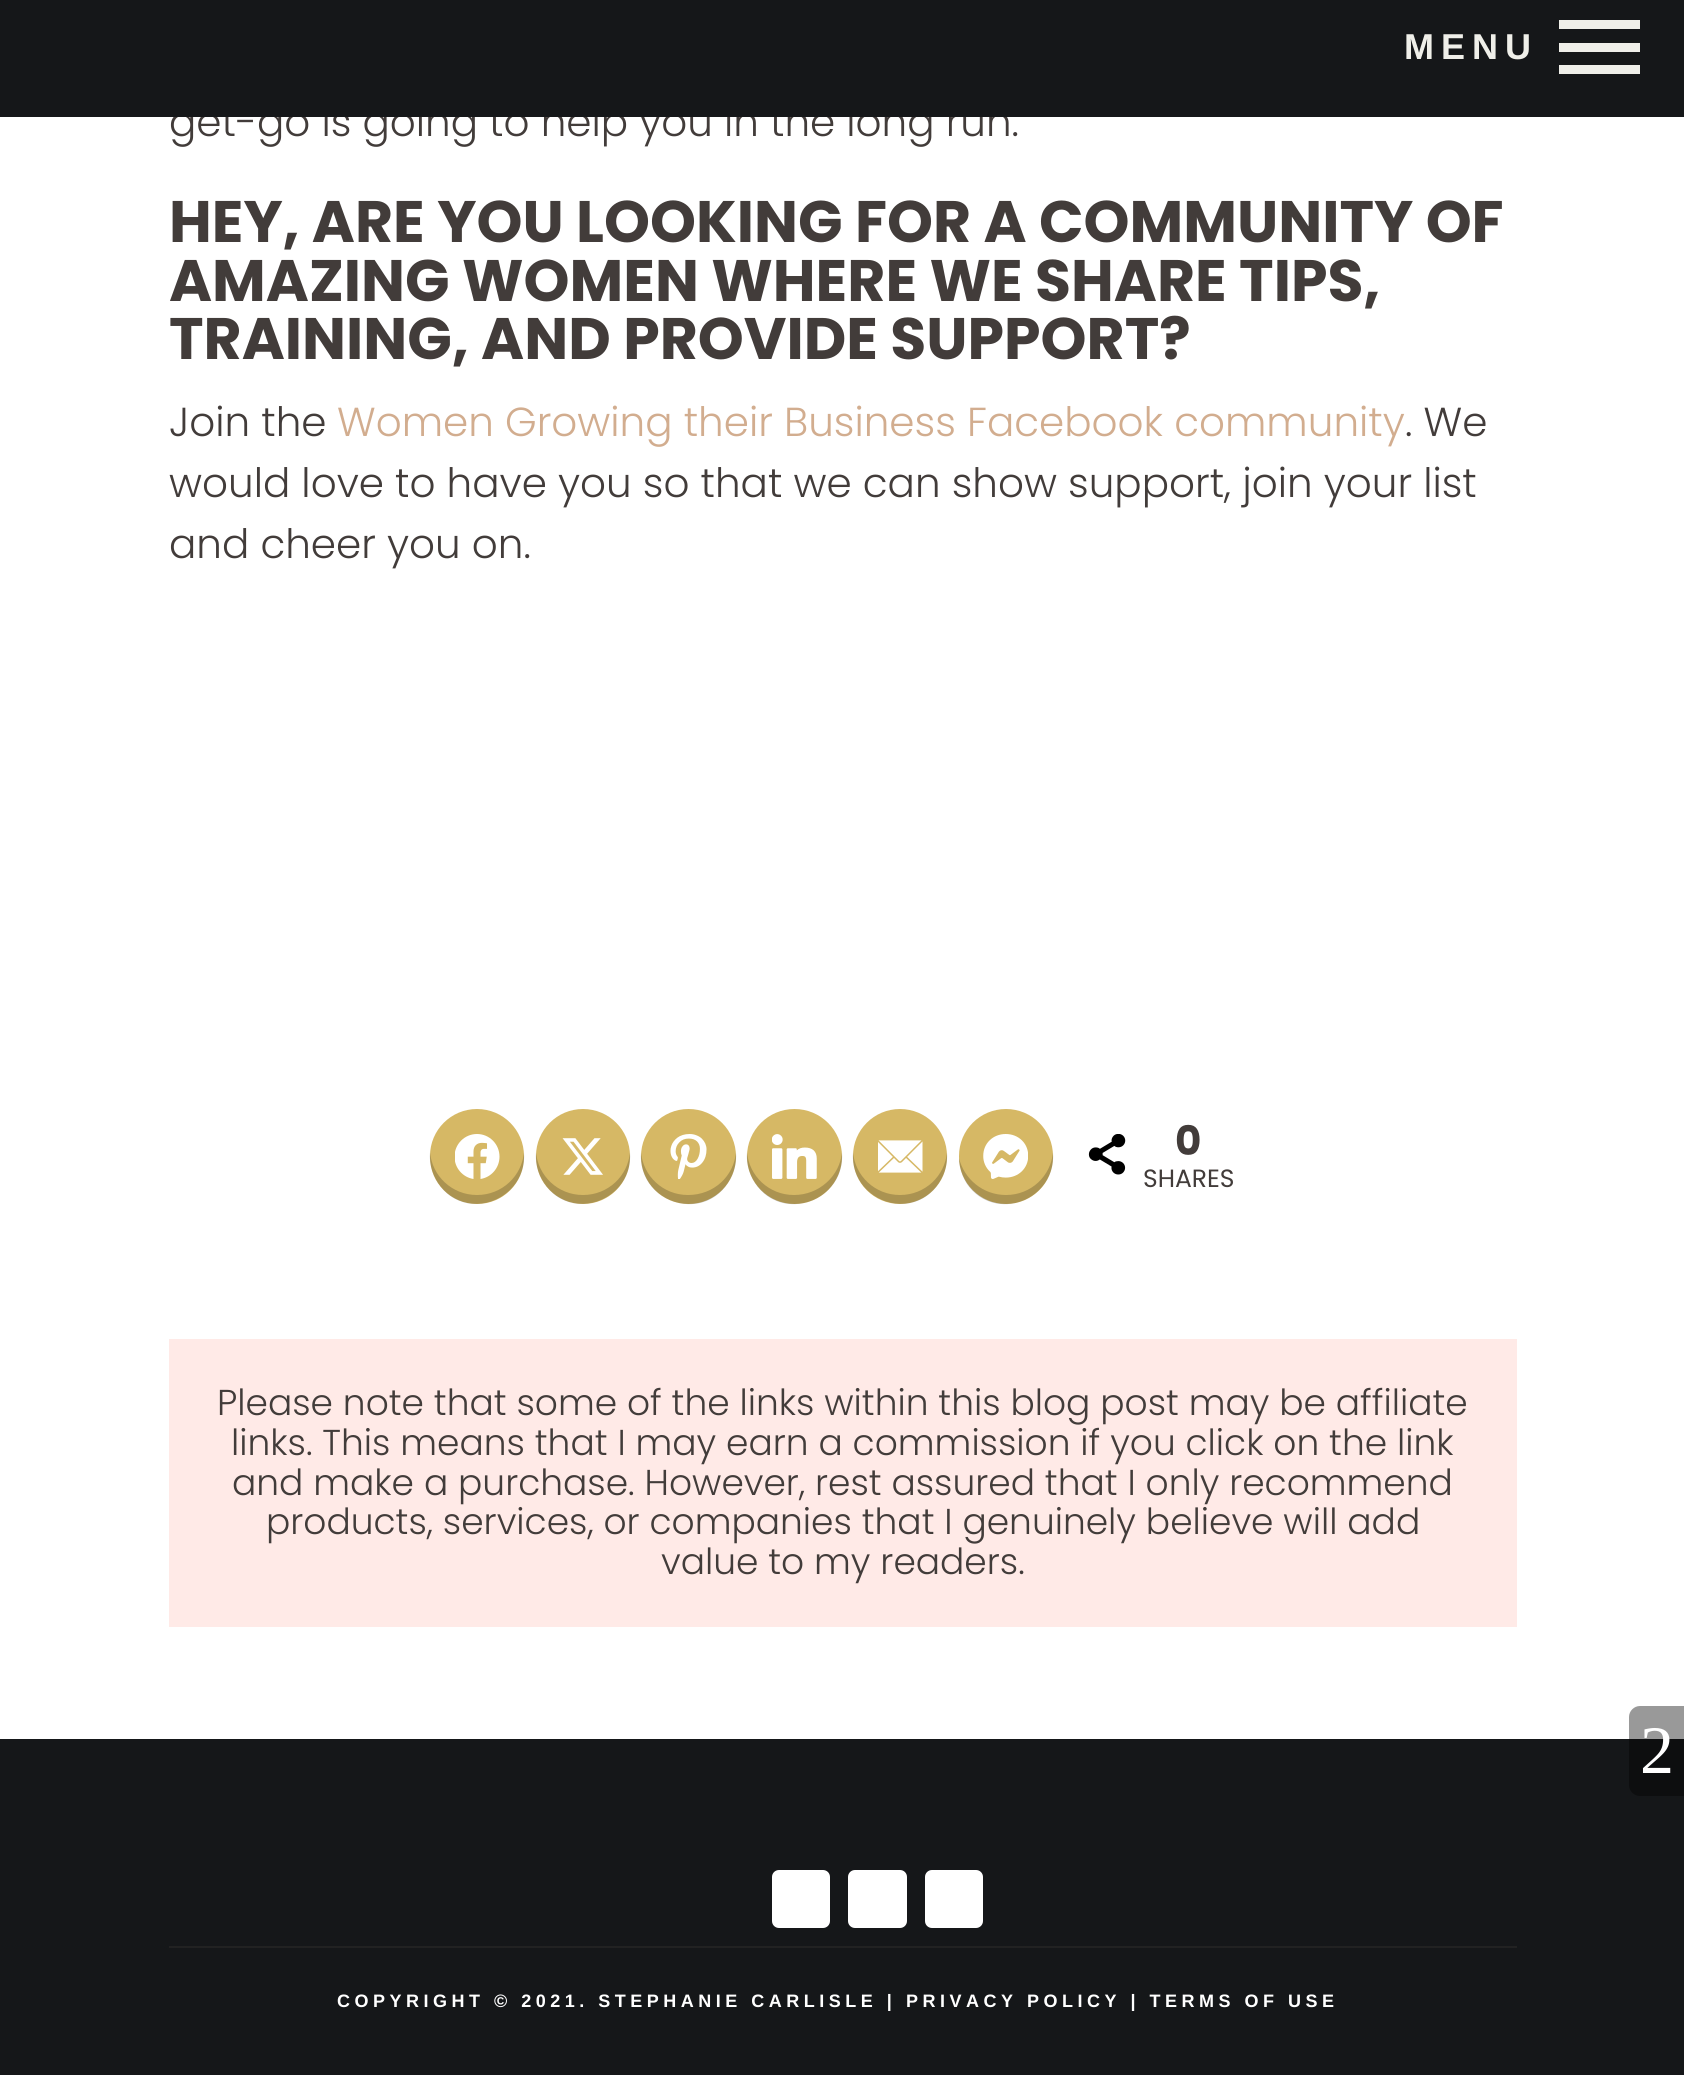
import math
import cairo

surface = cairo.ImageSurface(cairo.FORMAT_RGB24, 1684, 2075)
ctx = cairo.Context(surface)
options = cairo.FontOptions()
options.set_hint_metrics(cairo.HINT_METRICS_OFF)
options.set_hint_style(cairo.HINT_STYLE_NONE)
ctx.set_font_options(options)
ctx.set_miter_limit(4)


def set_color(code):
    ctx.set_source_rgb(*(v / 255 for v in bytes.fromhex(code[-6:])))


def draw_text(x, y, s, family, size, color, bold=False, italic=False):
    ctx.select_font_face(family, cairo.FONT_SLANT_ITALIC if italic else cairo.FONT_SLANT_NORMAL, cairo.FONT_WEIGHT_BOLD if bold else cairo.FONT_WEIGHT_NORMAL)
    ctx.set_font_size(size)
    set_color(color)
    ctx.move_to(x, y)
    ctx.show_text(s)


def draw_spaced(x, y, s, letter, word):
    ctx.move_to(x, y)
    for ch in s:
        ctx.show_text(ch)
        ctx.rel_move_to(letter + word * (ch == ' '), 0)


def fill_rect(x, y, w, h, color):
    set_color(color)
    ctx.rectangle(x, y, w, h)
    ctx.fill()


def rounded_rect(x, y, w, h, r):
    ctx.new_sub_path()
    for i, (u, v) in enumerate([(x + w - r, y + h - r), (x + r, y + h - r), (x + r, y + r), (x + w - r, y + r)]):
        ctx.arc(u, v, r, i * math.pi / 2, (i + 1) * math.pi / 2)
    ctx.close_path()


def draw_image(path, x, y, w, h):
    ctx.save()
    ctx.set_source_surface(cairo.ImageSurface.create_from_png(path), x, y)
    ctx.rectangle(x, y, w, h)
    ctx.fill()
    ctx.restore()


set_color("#ffffff")
ctx.paint()
draw_text(169, 136, "get-go is going to help you in the long run.", "Poppins Light", 40.5, "#423c3a")
fill_rect(0, 0, 1684, 117, "#151719")
fill_rect(1559, 20, 81, 9, "#efefe9")
ctx.select_font_face("Liberation Sans", cairo.FONT_SLANT_NORMAL, cairo.FONT_WEIGHT_BOLD)
ctx.set_font_size(36)
draw_spaced(1404, 59, "MENU", 7, 0)
fill_rect(1559, 43, 81, 9, "#efefe9")
fill_rect(1559, 65, 81, 9, "#efefe9")
draw_text(169, 242, "HEY, ARE YOU LOOKING FOR A COMMUNITY OF", "Poppins", 58.5, "#423c3a", bold=True)
draw_text(169, 301, "AMAZING WOMEN WHERE WE SHARE TIPS,", "Poppins", 58.5, "#423c3a", bold=True)
draw_text(169, 359, "TRAINING, AND PROVIDE SUPPORT?", "Poppins", 58.5, "#423c3a", bold=True)
draw_text(169, 436, "Join the", "Poppins Light", 40.5, "#423c3a")
draw_text(337, 436, "Women Growing their Business Facebook community", "Poppins Light", 40.5, "#d2ad8f")
draw_text(1405, 436, ". We", "Poppins Light", 40.5, "#423c3a")
draw_text(169, 497, "would love to have you so that we can show support, join your list", "Poppins Light", 40.5, "#423c3a")
draw_text(169, 558, "and cheer you on.", "Poppins Light", 40.5, "#423c3a")
set_color("#d6b865")
rounded_rect(430, 1109, 94, 95, 47)
ctx.fill()
ctx.set_source_rgba(0, 0, 0, 0.2)
ctx.new_path()
ctx.move_to(524, 1152)
ctx.curve_to(522, 1176, 502, 1195, 477, 1195)
ctx.curve_to(452, 1195, 432, 1176, 430, 1152)
ctx.curve_to(429, 1163, 432, 1174, 438, 1183)
ctx.curve_to(465, 1224, 528, 1200, 524, 1152)
ctx.close_path()
ctx.fill()
draw_image("assets/img1.png", 455, 1134, 45, 45)
set_color("#d6b865")
rounded_rect(536, 1109, 94, 95, 47)
ctx.fill()
ctx.set_source_rgba(0, 0, 0, 0.2)
ctx.new_path()
ctx.move_to(630, 1152)
ctx.curve_to(628, 1176, 608, 1195, 583, 1195)
ctx.curve_to(558, 1195, 538, 1176, 536, 1152)
ctx.curve_to(535, 1163, 538, 1174, 544, 1183)
ctx.curve_to(571, 1224, 634, 1200, 630, 1152)
ctx.close_path()
ctx.fill()
draw_image("assets/img2.png", 562, 1138, 41, 37)
set_color("#d6b865")
ctx.arc(688.5, 1156.5, 47.5, 0, 2 * math.pi)
ctx.fill()
ctx.set_source_rgba(0, 0, 0, 0.2)
ctx.new_path()
ctx.move_to(641, 1152)
ctx.curve_to(637, 1201, 701, 1224, 728, 1183)
ctx.curve_to(734, 1174, 737, 1163, 736, 1152)
ctx.curve_to(734, 1176, 714, 1195, 688, 1195)
ctx.curve_to(663, 1195, 643, 1176, 641, 1152)
ctx.close_path()
ctx.fill()
draw_image("assets/img3.png", 670, 1134, 37, 45)
set_color("#d6b865")
ctx.arc(794.5, 1156.5, 47.5, 0, 2 * math.pi)
ctx.fill()
ctx.set_source_rgba(0, 0, 0, 0.2)
ctx.new_path()
ctx.move_to(747, 1152)
ctx.curve_to(746, 1163, 749, 1174, 755, 1183)
ctx.curve_to(782, 1224, 846, 1201, 842, 1152)
ctx.curve_to(840, 1176, 819, 1195, 794, 1195)
ctx.curve_to(769, 1195, 749, 1176, 747, 1152)
ctx.close_path()
ctx.fill()
draw_image("assets/img4.png", 772, 1134, 45, 45)
set_color("#d6b865")
rounded_rect(853, 1109, 94, 95, 47)
ctx.fill()
ctx.set_source_rgba(0, 0, 0, 0.2)
ctx.new_path()
ctx.move_to(947, 1152)
ctx.curve_to(945, 1176, 925, 1195, 900, 1195)
ctx.curve_to(875, 1195, 855, 1176, 853, 1152)
ctx.curve_to(849, 1200, 912, 1224, 939, 1183)
ctx.curve_to(945, 1174, 948, 1163, 947, 1152)
ctx.close_path()
ctx.fill()
draw_image("assets/img5.png", 878, 1140, 45, 33)
set_color("#d6b865")
rounded_rect(959, 1109, 94, 95, 47)
ctx.fill()
ctx.set_source_rgba(0, 0, 0, 0.2)
ctx.new_path()
ctx.move_to(1053, 1152)
ctx.curve_to(1051, 1176, 1031, 1195, 1006, 1195)
ctx.curve_to(983, 1195, 964, 1179, 959, 1158)
ctx.curve_to(959, 1167, 962, 1176, 967, 1184)
ctx.curve_to(995, 1224, 1057, 1200, 1053, 1152)
ctx.close_path()
ctx.fill()
draw_image("assets/img6.png", 983, 1134, 45, 45)
draw_image("assets/img7.png", 1088, 1134, 38, 41)
draw_text(1175, 1155, "0", "Poppins", 40.5, "#423c3a", bold=True)
draw_text(1143, 1187, "SHARES", "Poppins", 25, "#423c3a")
fill_rect(169, 1339, 1348, 288, "#ffeae7")
draw_text(217, 1415, "Please note that some of the links within this blog post may be affiliate", "Poppins Light", 36, "#423c3a")
draw_text(231, 1455, "links. This means that I may earn a commission if you click on the link", "Poppins Light", 36, "#423c3a")
draw_text(232, 1495, "and make a purchase. However, rest assured that I only recommend", "Poppins Light", 36, "#423c3a")
draw_text(266, 1534, "products, services, or companies that I genuinely believe will add", "Poppins Light", 36, "#423c3a")
draw_text(661, 1574, "value to my readers.", "Poppins Light", 36, "#423c3a")
fill_rect(0, 1739, 1684, 336, "#151719")
set_color("#ffffff")
rounded_rect(772, 1870, 58, 58, 7)
ctx.fill()
rounded_rect(848, 1870, 59, 58, 7)
ctx.fill()
rounded_rect(925, 1870, 58, 58, 7)
ctx.fill()
fill_rect(169, 1946, 1348, 2, "#222222")
ctx.select_font_face("Liberation Sans", cairo.FONT_SLANT_NORMAL, cairo.FONT_WEIGHT_BOLD)
ctx.set_font_size(18)
set_color("#ffffff")
draw_spaced(337, 2007, "COPYRIGHT © 2021. STEPHANIE CARLISLE | PRIVACY POLICY | TERMS OF USE", 4.5, 0)
ctx.set_source_rgba(0, 0, 0, 0.4)
ctx.new_path()
ctx.move_to(1640, 1706)
ctx.line_to(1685, 1706)
ctx.line_to(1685, 1796)
ctx.line_to(1640, 1796)
ctx.curve_to(1634, 1796, 1629, 1791, 1629, 1785)
ctx.line_to(1629, 1717)
ctx.curve_to(1629, 1711, 1634, 1706, 1640, 1706)
ctx.close_path()
ctx.fill()
draw_text(1640, 1773, "2", "Liberation Serif", 68, "#ffffff")
surface.write_to_png("output.png")
